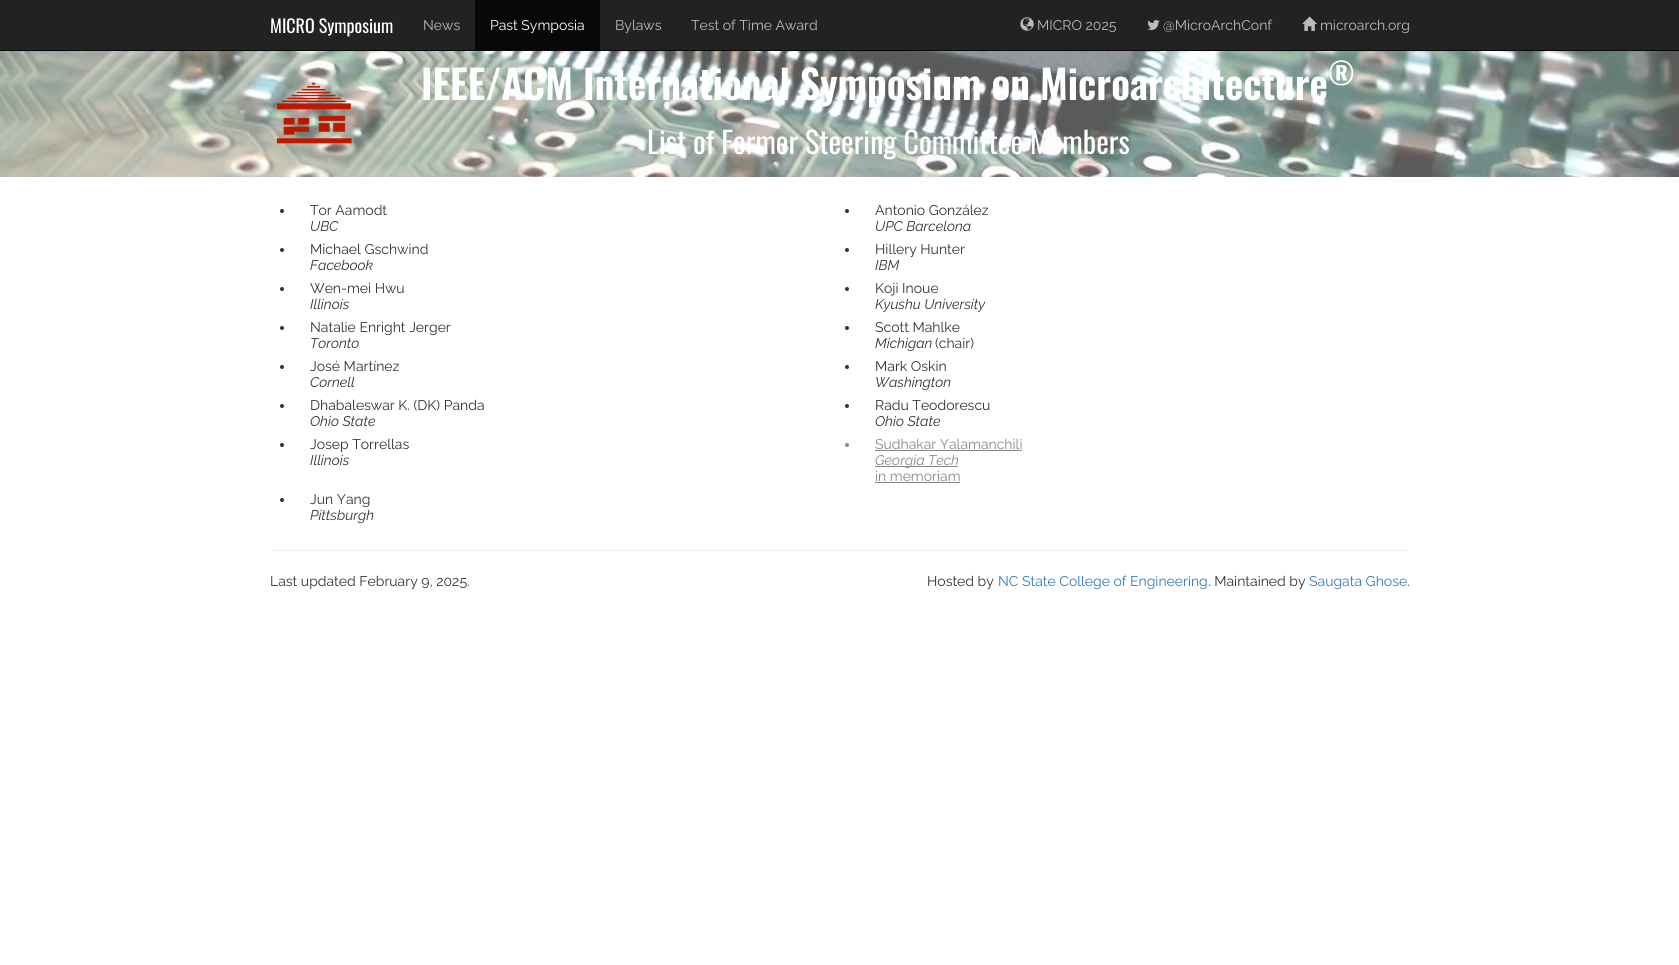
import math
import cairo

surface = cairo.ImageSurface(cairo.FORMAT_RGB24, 1679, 965)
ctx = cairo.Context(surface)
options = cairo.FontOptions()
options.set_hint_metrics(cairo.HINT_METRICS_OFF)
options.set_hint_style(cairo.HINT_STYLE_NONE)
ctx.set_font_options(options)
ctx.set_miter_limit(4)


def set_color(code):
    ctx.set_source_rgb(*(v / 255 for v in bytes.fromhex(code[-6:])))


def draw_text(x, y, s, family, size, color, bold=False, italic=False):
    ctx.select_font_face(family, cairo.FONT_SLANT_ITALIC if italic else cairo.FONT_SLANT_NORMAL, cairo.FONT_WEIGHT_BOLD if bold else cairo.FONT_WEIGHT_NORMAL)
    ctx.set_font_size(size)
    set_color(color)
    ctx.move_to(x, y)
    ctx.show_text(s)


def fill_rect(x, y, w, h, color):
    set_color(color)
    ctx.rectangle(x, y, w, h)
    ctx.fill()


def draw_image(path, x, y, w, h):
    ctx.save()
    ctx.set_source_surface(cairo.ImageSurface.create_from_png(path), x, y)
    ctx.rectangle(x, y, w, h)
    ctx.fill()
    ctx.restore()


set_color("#ffffff")
ctx.paint()
fill_rect(0, 0, 1679, 50, "#222222")
fill_rect(0, 50, 1679, 1, "#080808")
draw_text(270, 33, "MICRO Symposium", "Oswald", 18, "#ffffff")
draw_text(423, 30, "News", "Raleway", 14, "#bbbbbb")
fill_rect(475, 0, 125, 50, "#080808")
draw_text(490, 30, "Past Symposia", "Raleway", 14, "#ffffff")
draw_text(615, 30, "Bylaws", "Raleway", 14, "#bbbbbb")
draw_text(691, 30, "Test of Time Award", "Raleway", 14, "#bbbbbb")
draw_image("assets/img1.png", 1020, 17, 14, 14)
draw_text(1037, 30, "MICRO 2025", "Raleway", 14, "#bbbbbb")
draw_image("assets/img2.png", 1147, 20, 13, 10)
draw_text(1163, 30, "@MicroArchConf", "Raleway", 14, "#bbbbbb")
draw_image("assets/img3.png", 1302, 16, 15, 15)
draw_text(1320, 30, "microarch.org", "Raleway", 14, "#bbbbbb")
draw_image("assets/img4.png", 0, 51, 1679, 126)
draw_image("assets/img5.png", 276, 82, 76, 62)
draw_text(421, 100, "IEEE/ACM International Symposium on Microarchitecture", "Oswald SemiBold", 40, "#ffffff")
draw_text(1328, 85, "®", "Oswald SemiBold", 30, "#ffffff")
draw_text(647, 154, "List of Former Steering Committee Members", "Oswald", 30, "#ffffff")
set_color("#333333")
ctx.new_path()
ctx.arc(282, 211, 2, 0, 2 * math.pi)
ctx.fill()
draw_text(310, 215, "Tor Aamodt", "Raleway", 14, "#333333")
draw_text(310, 231, "UBC", "Raleway", 14, "#333333", italic=True)
ctx.new_path()
ctx.arc(847, 211, 2, 0, 2 * math.pi)
ctx.fill()
draw_text(875, 215, "Antonio González", "Raleway", 14, "#333333")
draw_text(875, 231, "UPC Barcelona", "Raleway", 14, "#333333", italic=True)
ctx.new_path()
ctx.arc(282, 250, 2, 0, 2 * math.pi)
ctx.fill()
draw_text(310, 254, "Michael Gschwind", "Raleway", 14, "#333333")
draw_text(310, 270, "Facebook", "Raleway", 14, "#333333", italic=True)
ctx.new_path()
ctx.arc(847, 250, 2, 0, 2 * math.pi)
ctx.fill()
draw_text(875, 254, "Hillery Hunter", "Raleway", 14, "#333333")
draw_text(875, 270, "IBM", "Raleway", 14, "#333333", italic=True)
ctx.new_path()
ctx.arc(282, 289, 2, 0, 2 * math.pi)
ctx.fill()
draw_text(310, 293, "Wen-mei Hwu", "Raleway", 14, "#333333")
draw_text(310, 309, "Illinois", "Raleway", 14, "#333333", italic=True)
ctx.new_path()
ctx.arc(847, 289, 2, 0, 2 * math.pi)
ctx.fill()
draw_text(875, 293, "Koji Inoue", "Raleway", 14, "#333333")
draw_text(875, 309, "Kyushu University", "Raleway", 14, "#333333", italic=True)
ctx.new_path()
ctx.arc(282, 328, 2, 0, 2 * math.pi)
ctx.fill()
draw_text(310, 332, "Natalie Enright Jerger", "Raleway", 14, "#333333")
draw_text(310, 348, "Toronto", "Raleway", 14, "#333333", italic=True)
ctx.new_path()
ctx.arc(847, 328, 2, 0, 2 * math.pi)
ctx.fill()
draw_text(875, 332, "Scott Mahlke", "Raleway", 14, "#333333")
draw_text(875, 348, "Michigan", "Raleway", 14, "#333333", italic=True)
draw_text(935, 348, "(chair)", "Raleway", 14, "#333333")
ctx.new_path()
ctx.arc(282, 367, 2, 0, 2 * math.pi)
ctx.fill()
draw_text(310, 371, "José Martínez", "Raleway", 14, "#333333")
draw_text(310, 387, "Cornell", "Raleway", 14, "#333333", italic=True)
ctx.new_path()
ctx.arc(847, 367, 2, 0, 2 * math.pi)
ctx.fill()
draw_text(875, 371, "Mark Oskin", "Raleway", 14, "#333333")
draw_text(875, 387, "Washington", "Raleway", 14, "#333333", italic=True)
ctx.new_path()
ctx.arc(282, 406, 2, 0, 2 * math.pi)
ctx.fill()
draw_text(310, 410, "Dhabaleswar K. (DK) Panda", "Raleway", 14, "#333333")
draw_text(310, 426, "Ohio State", "Raleway", 14, "#333333", italic=True)
ctx.new_path()
ctx.arc(847, 406, 2, 0, 2 * math.pi)
ctx.fill()
draw_text(875, 410, "Radu Teodorescu", "Raleway", 14, "#333333")
draw_text(875, 426, "Ohio State", "Raleway", 14, "#333333", italic=True)
ctx.new_path()
ctx.arc(282, 445, 2, 0, 2 * math.pi)
ctx.fill()
draw_text(310, 449, "Josep Torrellas", "Raleway", 14, "#333333")
draw_text(310, 465, "Illinois", "Raleway", 14, "#333333", italic=True)
set_color("#888888")
ctx.new_path()
ctx.arc(847, 445, 2, 0, 2 * math.pi)
ctx.fill()
draw_text(875, 449, "Sudhakar Yalamanchili", "Raleway", 14, "#888888")
fill_rect(875, 450, 147, 1, "#888888")
fill_rect(875, 466, 83, 1, "#888888")
draw_text(875, 465, "Georgia Tech", "Raleway", 14, "#888888", italic=True)
draw_text(875, 481, "in memoriam", "Raleway", 14, "#888888")
fill_rect(875, 482, 85, 1, "#888888")
set_color("#333333")
ctx.new_path()
ctx.arc(282, 500, 2, 0, 2 * math.pi)
ctx.fill()
draw_text(310, 504, "Jun Yang", "Raleway", 14, "#333333")
draw_text(310, 520, "Pittsburgh", "Raleway", 14, "#333333", italic=True)
fill_rect(270, 550, 1140, 1, "#eeeeee")
draw_text(270, 586, "Last updated February 9, 2025.", "Raleway", 14, "#333333")
draw_text(927, 586, "Hosted by", "Raleway", 14, "#333333")
draw_text(998, 586, "NC State College of Engineering", "Raleway", 14, "#337ab7")
draw_text(1208, 586, ". Maintained by", "Raleway", 14, "#333333")
draw_text(1309, 586, "Saugata Ghose", "Raleway", 14, "#337ab7")
draw_text(1407, 586, ".", "Raleway", 14, "#333333")
surface.write_to_png("output.png")
